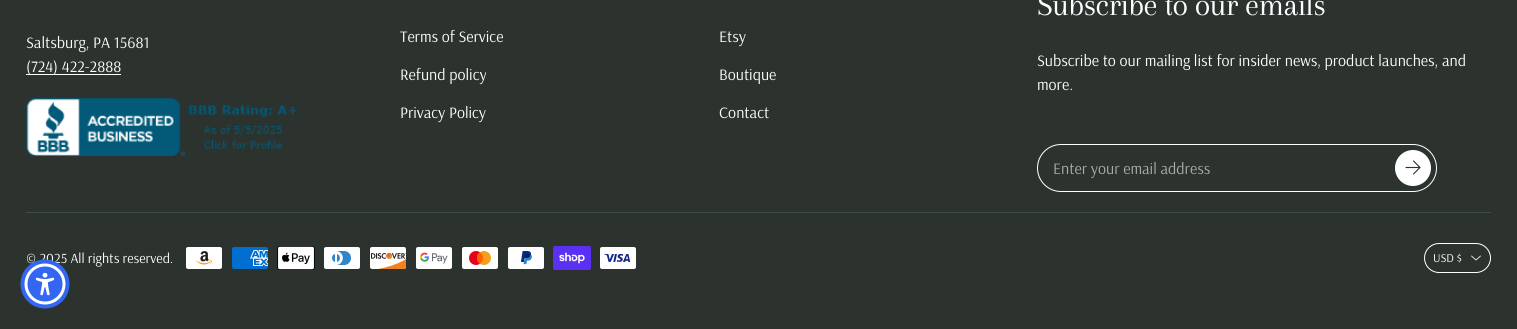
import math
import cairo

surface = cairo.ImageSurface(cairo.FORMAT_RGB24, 1517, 329)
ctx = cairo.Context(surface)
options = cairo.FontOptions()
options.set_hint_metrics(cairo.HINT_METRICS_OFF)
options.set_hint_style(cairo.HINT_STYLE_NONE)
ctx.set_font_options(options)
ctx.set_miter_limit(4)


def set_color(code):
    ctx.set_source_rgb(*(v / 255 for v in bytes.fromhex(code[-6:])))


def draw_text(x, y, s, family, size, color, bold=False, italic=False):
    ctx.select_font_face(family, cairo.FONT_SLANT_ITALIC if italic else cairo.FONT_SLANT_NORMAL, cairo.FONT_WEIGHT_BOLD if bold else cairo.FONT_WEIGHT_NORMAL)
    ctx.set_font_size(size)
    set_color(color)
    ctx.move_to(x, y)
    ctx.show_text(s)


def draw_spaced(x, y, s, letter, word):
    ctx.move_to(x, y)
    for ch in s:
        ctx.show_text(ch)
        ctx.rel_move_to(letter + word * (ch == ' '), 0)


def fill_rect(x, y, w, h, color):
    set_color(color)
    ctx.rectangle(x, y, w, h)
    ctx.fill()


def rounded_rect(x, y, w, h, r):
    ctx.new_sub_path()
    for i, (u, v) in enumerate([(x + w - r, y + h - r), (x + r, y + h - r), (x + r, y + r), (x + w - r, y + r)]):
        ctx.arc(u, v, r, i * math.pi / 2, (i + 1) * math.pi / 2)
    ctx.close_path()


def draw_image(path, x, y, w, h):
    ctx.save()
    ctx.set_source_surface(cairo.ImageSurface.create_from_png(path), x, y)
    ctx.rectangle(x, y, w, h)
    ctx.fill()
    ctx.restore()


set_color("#2c332f")
ctx.paint()
draw_text(26, 48, "Saltsburg, PA 15681", "Arsenal", 16, "#ffffff")
fill_rect(26, 74, 95, 1, "#ffffff")
draw_text(26, 72, "(724) 422-2888", "Arsenal", 16, "#ffffff")
draw_image("assets/img1.png", 26, 98, 271, 58)
draw_text(400, 42, "Terms of Service", "Arsenal", 16, "#ffffff")
draw_text(400, 80, "Refund policy", "Arsenal", 16, "#ffffff")
draw_text(400, 118, "Privacy Policy", "Arsenal", 16, "#ffffff")
draw_text(719, 42, "Etsy", "Arsenal", 16, "#ffffff")
draw_text(719, 80, "Boutique", "Arsenal", 16, "#ffffff")
draw_text(719, 118, "Contact", "Arsenal", 16, "#ffffff")
ctx.select_font_face("Arapey")
ctx.set_font_size(32)
draw_spaced(1037, 15, "Subscribe to our emails", -0.6, 0)
draw_text(1037, 66, "Subscribe to our mailing list for insider news, product launches, and", "Arsenal", 16, "#ffffff")
draw_text(1037, 90, "more.", "Arsenal", 16, "#ffffff")
rounded_rect(1037.5, 144.5, 399, 47, 23.5)
ctx.set_line_width(1)
ctx.stroke()
draw_text(1053, 174, "Enter your email address", "Arsenal", 16, "#abadac")
set_color("#ffffff")
ctx.new_path()
ctx.arc(1413, 168, 18, 0, 2 * math.pi)
ctx.fill()
ctx.new_path()
ctx.move_to(1406, 167.5)
ctx.line_to(1419, 167.5)
ctx.move_to(1413.5, 161)
ctx.line_to(1420, 167.5)
ctx.line_to(1413.5, 174)
set_color("#2c332f")
ctx.set_line_width(1.1)
ctx.set_line_cap(cairo.LINE_CAP_ROUND)
ctx.set_line_join(cairo.LINE_JOIN_ROUND)
ctx.stroke()
fill_rect(26, 212, 1465, 1, "#404944")
draw_text(26, 263, "© 2025 All rights reserved.", "Arsenal", 14, "#ffffff")
draw_image("assets/img2.png", 186, 247, 36, 22)
draw_image("assets/img3.png", 232, 247, 36, 22)
draw_image("assets/img4.png", 277, 246, 38, 24)
draw_image("assets/img5.png", 324, 247, 36, 22)
draw_image("assets/img6.png", 370, 247, 36, 22)
draw_image("assets/img7.png", 416, 247, 36, 22)
draw_image("assets/img8.png", 462, 247, 36, 22)
draw_image("assets/img9.png", 508, 247, 36, 22)
draw_image("assets/img10.png", 553, 246, 38, 24)
draw_image("assets/img11.png", 600, 247, 36, 22)
rounded_rect(1424.5, 243.5, 66, 29, 14.5)
ctx.set_line_width(1)
ctx.set_line_cap(cairo.LINE_CAP_BUTT)
ctx.set_line_join(cairo.LINE_JOIN_MITER)
ctx.stroke()
draw_text(1433, 262, "USD $", "Arsenal", 12, "#ffffff")
ctx.new_path()
ctx.move_to(1471.5, 256)
ctx.line_to(1476, 260)
ctx.line_to(1480.5, 256)
ctx.set_line_width(0.8)
ctx.set_line_cap(cairo.LINE_CAP_ROUND)
ctx.set_line_join(cairo.LINE_JOIN_ROUND)
ctx.stroke()
set_color("#3366f3")
ctx.arc(45, 284, 24.5, 0, 2 * math.pi)
ctx.fill()
set_color("#ffffff")
ctx.arc(45, 284, 20.5, 0, 2 * math.pi)
ctx.fill()
set_color("#3366f3")
ctx.arc(45, 284, 17.5, 0, 2 * math.pi)
ctx.fill()
draw_image("assets/img12.png", 35, 273, 20, 23)
surface.write_to_png("output.png")
